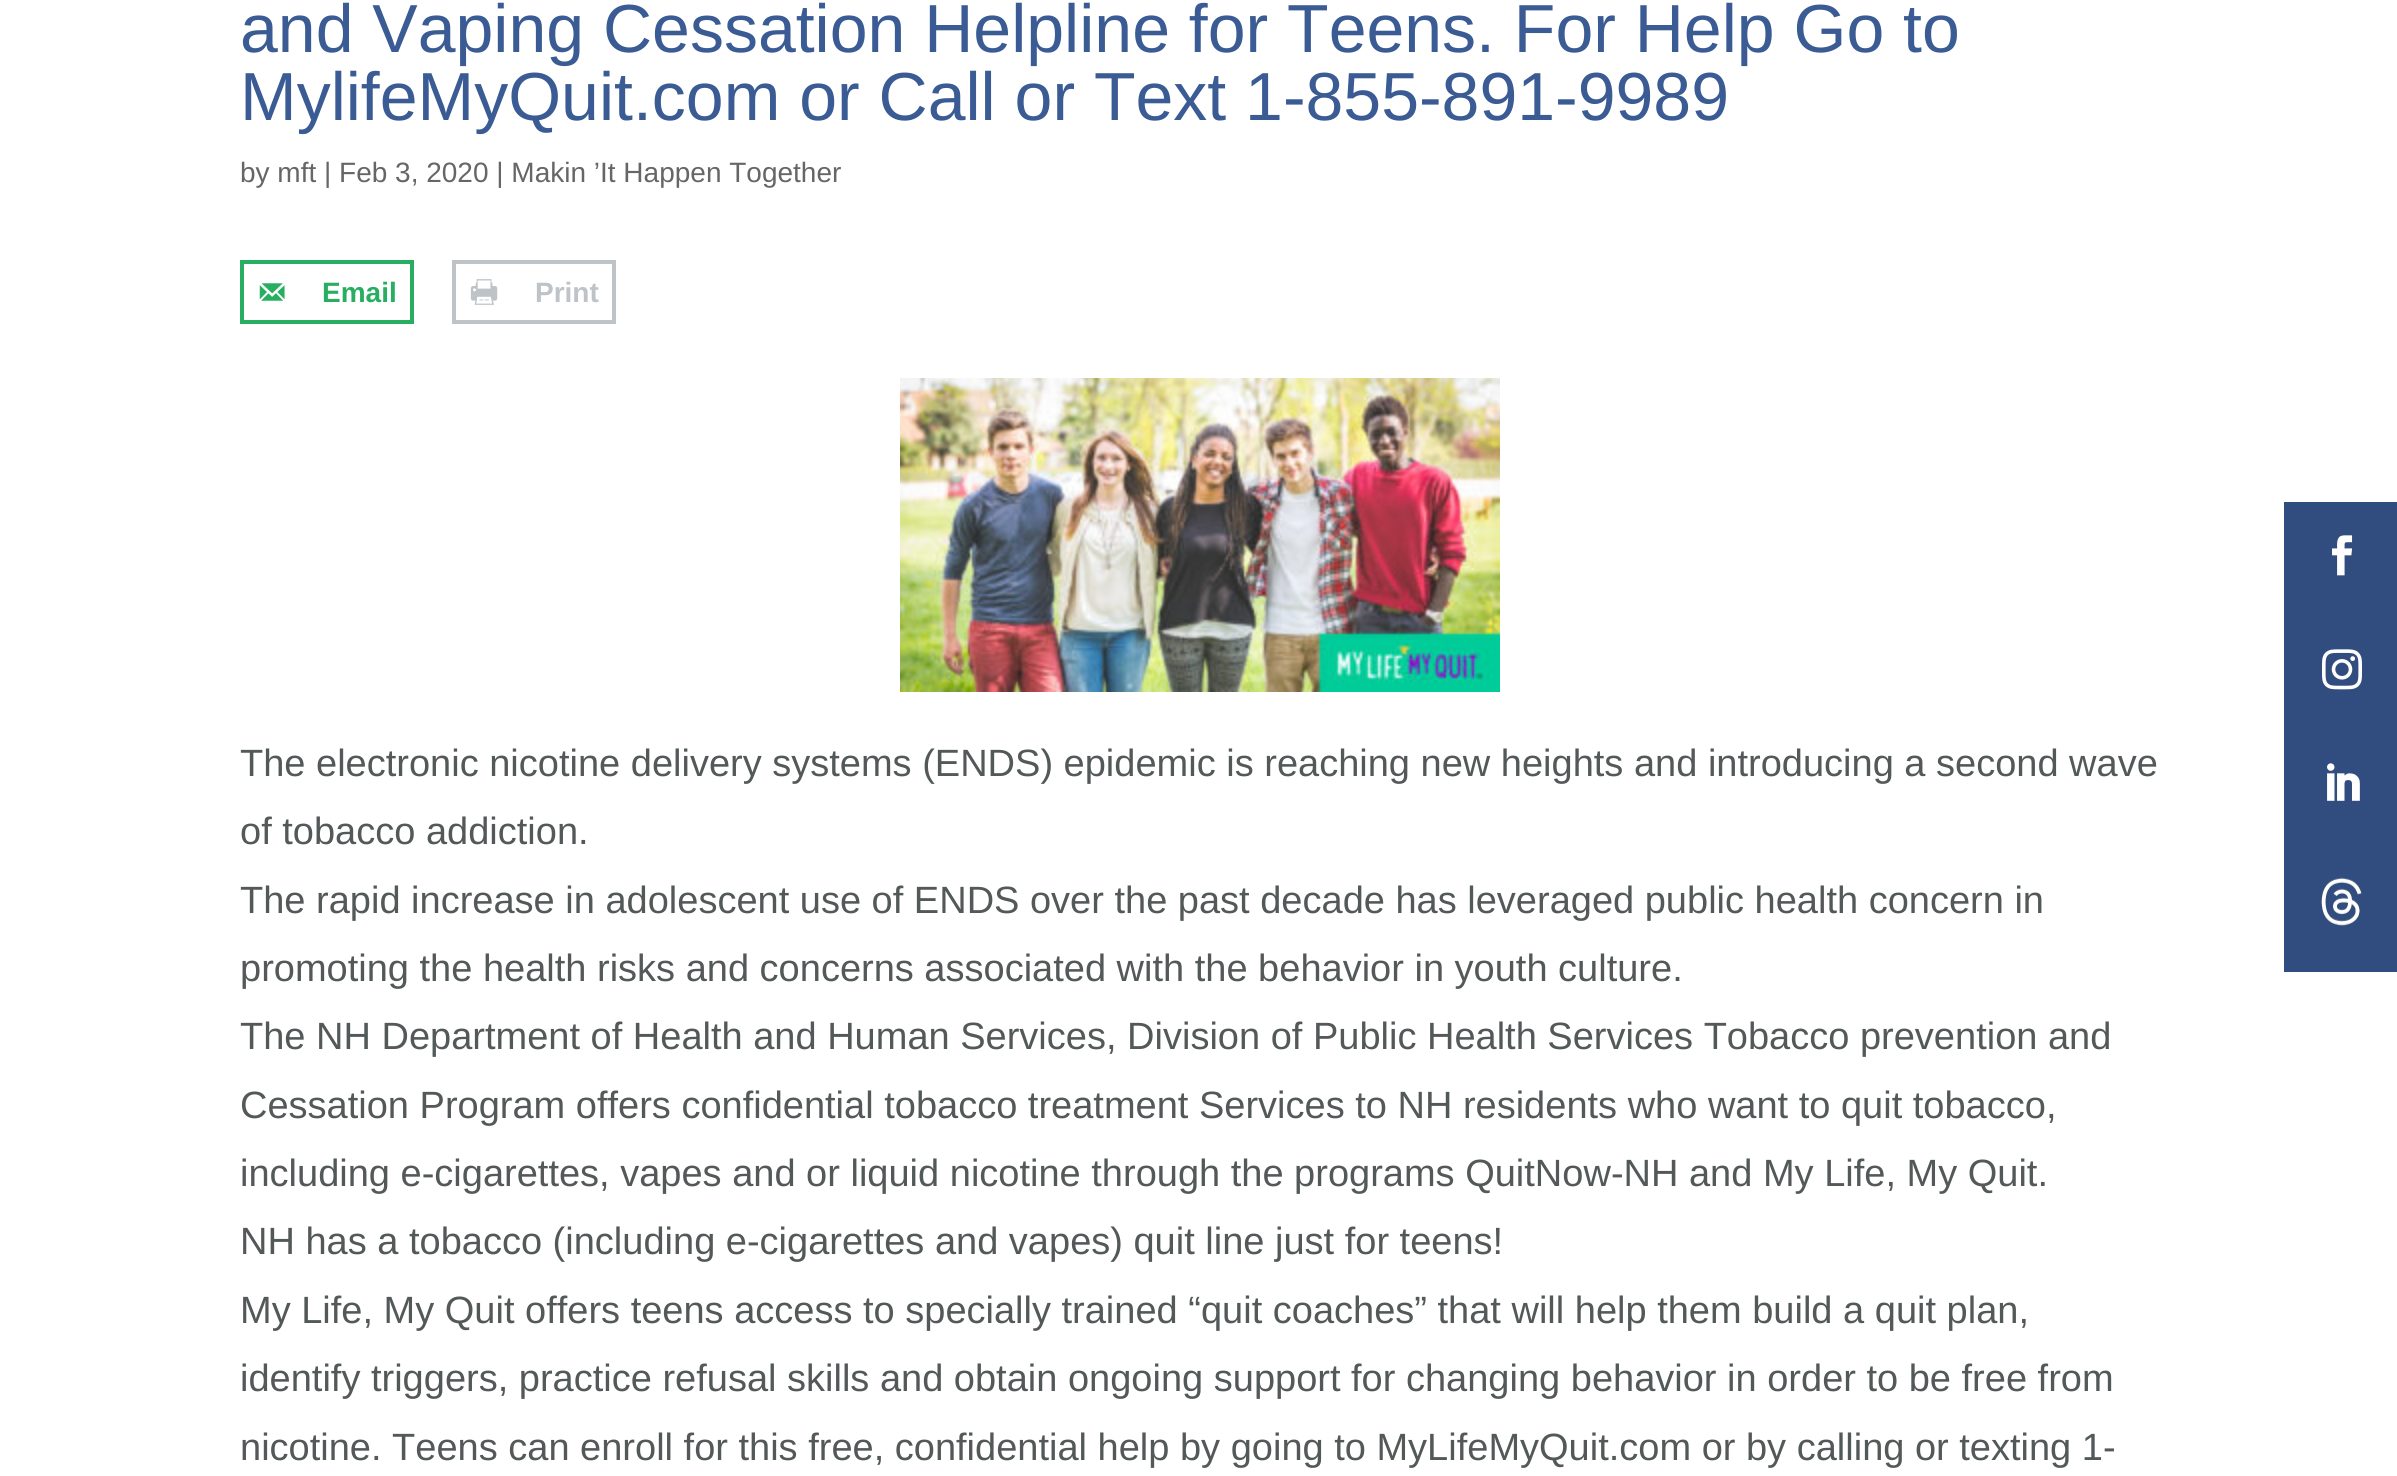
import math
import cairo

surface = cairo.ImageSurface(cairo.FORMAT_RGB24, 2397, 1476)
ctx = cairo.Context(surface)
options = cairo.FontOptions()
options.set_hint_metrics(cairo.HINT_METRICS_OFF)
options.set_hint_style(cairo.HINT_STYLE_NONE)
ctx.set_font_options(options)
ctx.set_miter_limit(4)


def set_color(code):
    ctx.set_source_rgb(*(v / 255 for v in bytes.fromhex(code[-6:])))


def draw_text(x, y, s, family, size, color, bold=False, italic=False):
    ctx.select_font_face(family, cairo.FONT_SLANT_ITALIC if italic else cairo.FONT_SLANT_NORMAL, cairo.FONT_WEIGHT_BOLD if bold else cairo.FONT_WEIGHT_NORMAL)
    ctx.set_font_size(size)
    set_color(color)
    ctx.move_to(x, y)
    ctx.show_text(s)


def fill_rect(x, y, w, h, color):
    set_color(color)
    ctx.rectangle(x, y, w, h)
    ctx.fill()


def draw_image(path, x, y, w, h):
    ctx.save()
    ctx.set_source_surface(cairo.ImageSurface.create_from_png(path), x, y)
    ctx.rectangle(x, y, w, h)
    ctx.fill()
    ctx.restore()


set_color("#ffffff")
ctx.paint()
draw_text(240, 52, "and Vaping Cessation Helpline for Teens. For Help Go to", "Liberation Sans", 68, "#3a5b93")
draw_text(240, 120, "MylifeMyQuit.com or Call or Text 1-855-891-9989", "Liberation Sans", 68, "#3a5b93")
draw_text(240, 182, "by mft | Feb 3, 2020 | Makin ’It Happen Together", "Liberation Sans", 28, "#666666")
ctx.rectangle(242, 262, 170, 60)
set_color("#27ae60")
ctx.set_line_width(4)
ctx.stroke()
draw_image("assets/img1.png", 259, 283, 26, 18)
draw_text(322, 302, "Email", "Liberation Sans", 28, "#27ae60", bold=True)
ctx.rectangle(454, 262, 160, 60)
set_color("#bdc3c7")
ctx.stroke()
draw_image("assets/img2.png", 470, 279, 28, 26)
draw_text(535, 302, "Print", "Liberation Sans", 28, "#bdc3c7", bold=True)
draw_image("assets/img3.png", 900, 378, 600, 314)
draw_text(240, 776, "The electronic nicotine delivery systems (ENDS) epidemic is reaching new heights and introducing a second wave", "Liberation Sans", 38, "#535858")
draw_text(240, 844, "of tobacco addiction.", "Liberation Sans", 38, "#535858")
draw_text(240, 913, "The rapid increase in adolescent use of ENDS over the past decade has leveraged public health concern in", "Liberation Sans", 38, "#535858")
draw_text(240, 981, "promoting the health risks and concerns associated with the behavior in youth culture.", "Liberation Sans", 38, "#535858")
draw_text(240, 1049, "The NH Department of Health and Human Services, Division of Public Health Services Tobacco prevention and", "Liberation Sans", 38, "#535858")
draw_text(240, 1118, "Cessation Program offers confidential tobacco treatment Services to NH residents who want to quit tobacco,", "Liberation Sans", 38, "#535858")
draw_text(240, 1186, "including e-cigarettes, vapes and or liquid nicotine through the programs QuitNow-NH and My Life, My Quit.", "Liberation Sans", 38, "#535858")
draw_text(240, 1254, "NH has a tobacco (including e-cigarettes and vapes) quit line just for teens!", "Liberation Sans", 38, "#535858")
draw_text(240, 1323, "My Life, My Quit offers teens access to specially trained “quit coaches” that will help them build a quit plan,", "Liberation Sans", 38, "#535858")
draw_text(240, 1391, "identify triggers, practice refusal skills and obtain ongoing support for changing behavior in order to be free from", "Liberation Sans", 38, "#535858")
draw_text(240, 1460, "nicotine. Teens can enroll for this free, confidential help by going to MyLifeMyQuit.com or by calling or texting 1-", "Liberation Sans", 38, "#535858")
fill_rect(2284, 502, 113, 470, "#314c7e")
draw_image("assets/img4.png", 2332, 535, 21, 41)
draw_image("assets/img5.png", 2322, 649, 40, 41)
draw_image("assets/img6.png", 2327, 763, 33, 38)
draw_image("assets/img7.png", 2321, 877, 41, 49)
surface.write_to_png("output.png")
